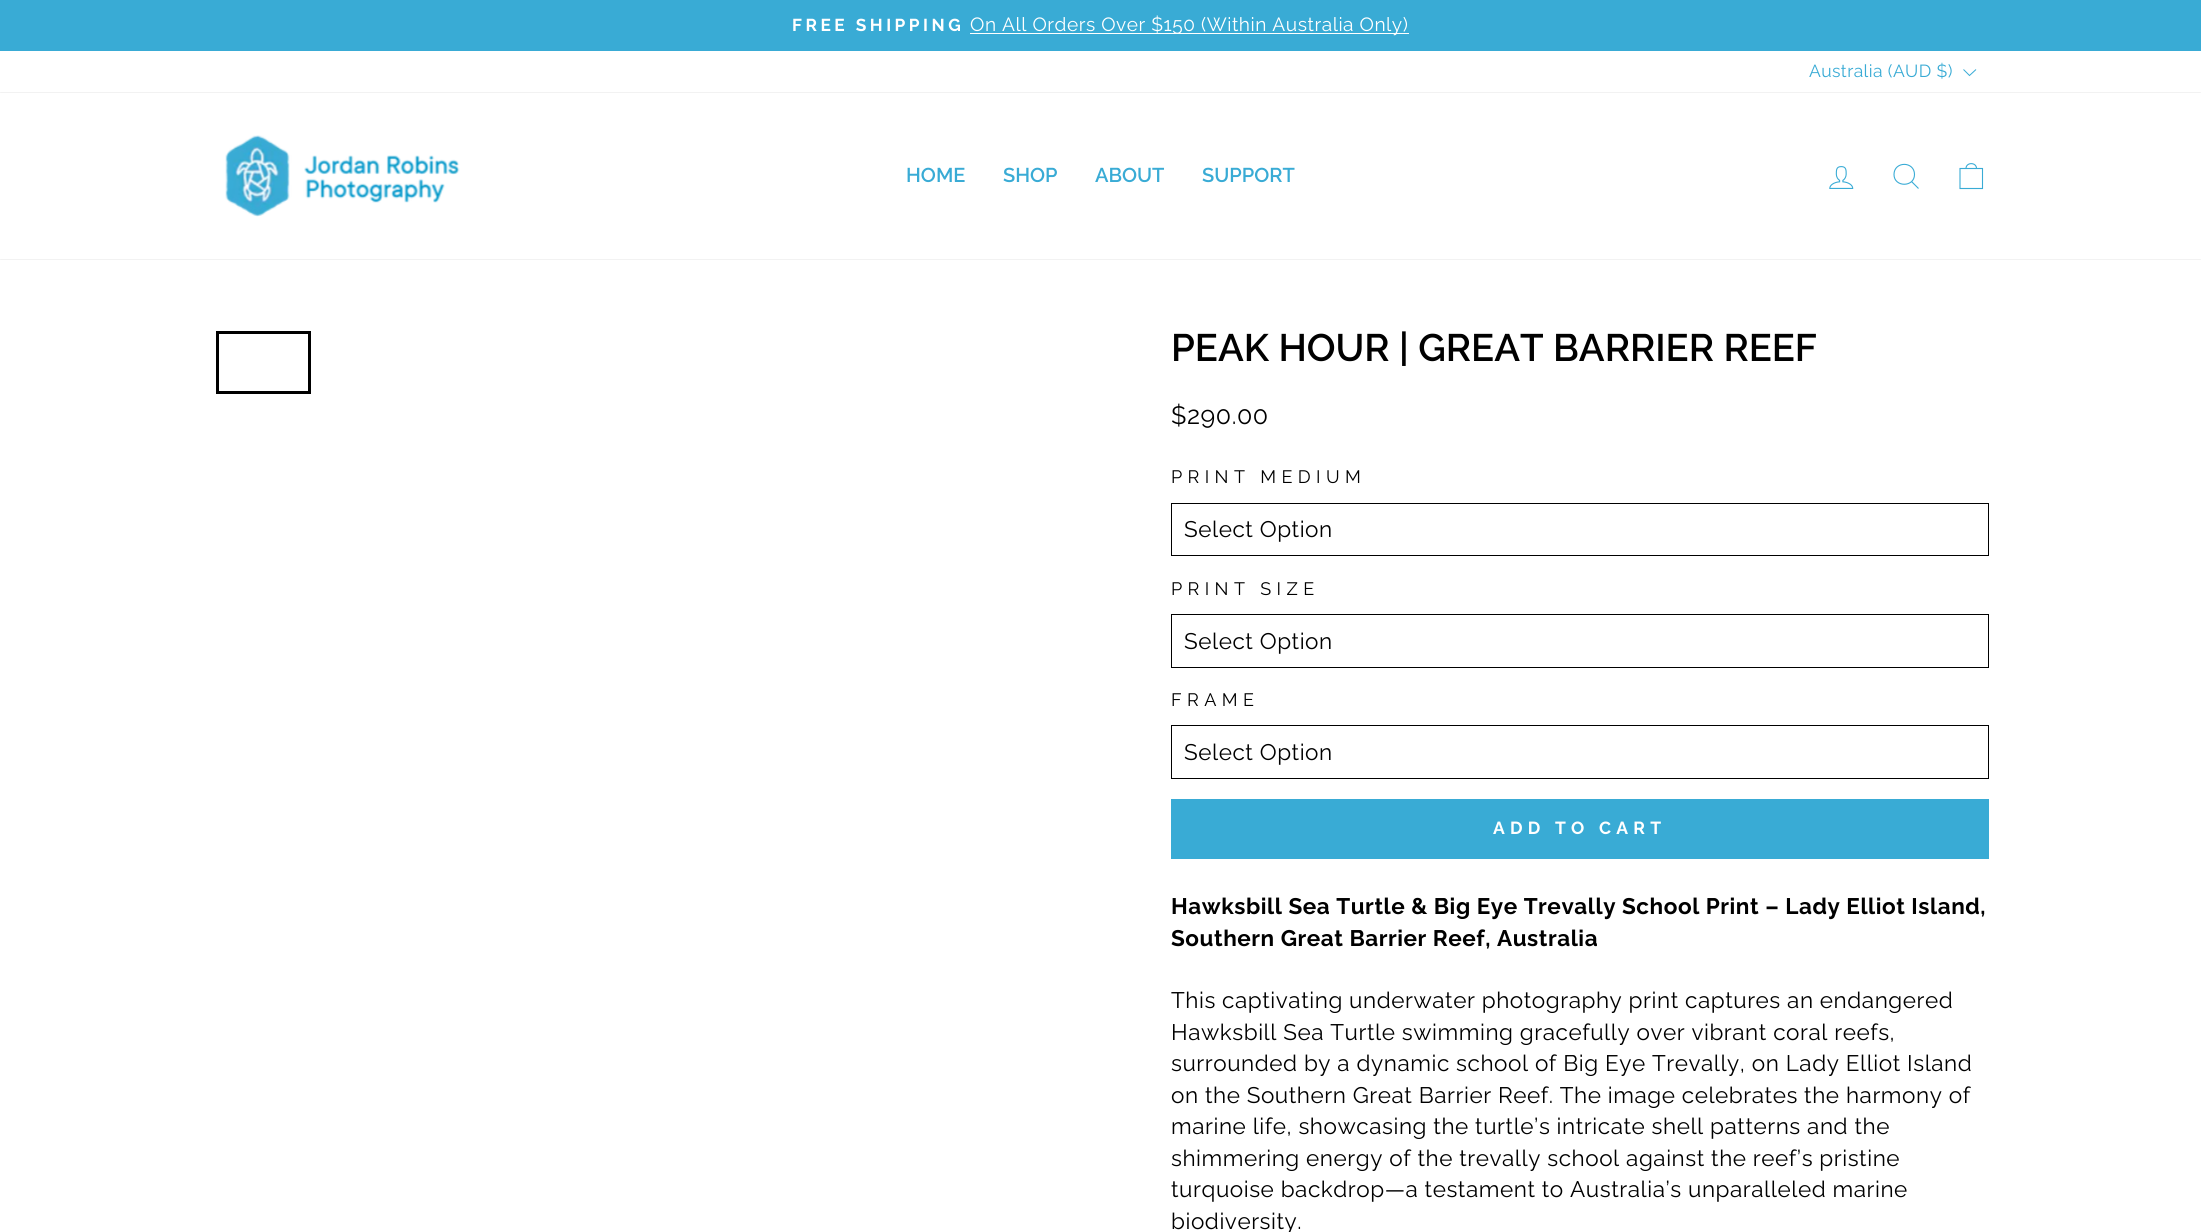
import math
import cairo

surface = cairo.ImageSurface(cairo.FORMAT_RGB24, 2201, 1232)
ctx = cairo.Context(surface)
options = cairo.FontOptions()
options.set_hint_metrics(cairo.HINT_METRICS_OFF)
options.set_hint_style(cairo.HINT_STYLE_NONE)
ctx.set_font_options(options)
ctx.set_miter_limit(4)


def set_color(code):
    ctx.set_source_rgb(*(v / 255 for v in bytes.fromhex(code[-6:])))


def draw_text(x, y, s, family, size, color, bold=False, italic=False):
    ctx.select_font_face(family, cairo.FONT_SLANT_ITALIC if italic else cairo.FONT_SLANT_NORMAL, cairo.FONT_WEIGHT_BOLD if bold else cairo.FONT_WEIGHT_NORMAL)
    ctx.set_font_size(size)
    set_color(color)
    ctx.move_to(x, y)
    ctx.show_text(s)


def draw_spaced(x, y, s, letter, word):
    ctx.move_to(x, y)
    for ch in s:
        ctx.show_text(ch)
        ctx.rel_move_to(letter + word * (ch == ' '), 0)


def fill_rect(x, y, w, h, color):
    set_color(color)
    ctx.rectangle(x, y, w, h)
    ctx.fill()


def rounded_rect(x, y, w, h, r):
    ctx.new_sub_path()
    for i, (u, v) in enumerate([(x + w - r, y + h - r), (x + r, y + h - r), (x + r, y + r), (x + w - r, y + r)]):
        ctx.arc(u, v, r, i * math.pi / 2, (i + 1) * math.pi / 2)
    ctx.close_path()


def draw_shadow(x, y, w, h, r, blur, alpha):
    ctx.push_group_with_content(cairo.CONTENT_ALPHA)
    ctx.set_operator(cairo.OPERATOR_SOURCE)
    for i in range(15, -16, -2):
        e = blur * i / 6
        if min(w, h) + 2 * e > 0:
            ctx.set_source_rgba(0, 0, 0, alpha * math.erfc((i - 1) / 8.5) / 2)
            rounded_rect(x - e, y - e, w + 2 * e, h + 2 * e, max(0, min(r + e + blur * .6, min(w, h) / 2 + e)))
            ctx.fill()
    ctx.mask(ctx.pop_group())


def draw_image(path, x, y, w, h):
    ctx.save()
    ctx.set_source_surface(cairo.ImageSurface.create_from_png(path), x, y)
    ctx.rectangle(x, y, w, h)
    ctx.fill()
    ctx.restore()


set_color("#ffffff")
ctx.paint()
fill_rect(0, 0, 2201, 51, "#39abd5")
ctx.select_font_face("Raleway", cairo.FONT_SLANT_NORMAL, cairo.FONT_WEIGHT_BOLD)
ctx.set_font_size(17.25)
set_color("#ffffff")
draw_spaced(792, 31, "FREE SHIPPING", 3.5, 0)
fill_rect(970, 33, 439, 1, "#ffffff")
ctx.select_font_face("Raleway")
ctx.set_font_size(19.1)
draw_spaced(970, 31, "On All Orders Over $150 (Within Australia Only)", 0.55, 0)
ctx.set_font_size(17.5)
set_color("#39abd5")
draw_spaced(1809, 77, "Australia (AUD $)", 0.4, 0)
ctx.new_path()
ctx.move_to(1963.5, 69.5)
ctx.line_to(1969.5, 75.5)
ctx.line_to(1976, 69.5)
ctx.set_line_width(1)
ctx.stroke()
set_color("#000000")
draw_shadow(0, 93, 2201, 166, 0, 0.5, 0.2)
fill_rect(0, 93, 2201, 166, "#ffffff")
draw_image("assets/img1.png", 225, 135, 235, 82)
draw_text(906, 182, "HOME", "Raleway SemiBold", 20, "#39abd5")
draw_text(1003, 182, "SHOP", "Raleway SemiBold", 20, "#39abd5")
draw_text(1095, 182, "ABOUT", "Raleway SemiBold", 20, "#39abd5")
draw_text(1202, 182, "SUPPORT", "Raleway SemiBold", 20, "#39abd5")
draw_image("assets/img2.png", 1829, 166, 25, 23)
ctx.new_path()
ctx.move_to(1914.5, 174.5)
ctx.curve_to(1914.5, 187.5, 1894, 187.5, 1894, 174.5)
ctx.curve_to(1894, 161, 1914.5, 161, 1914.5, 174.5)
ctx.close_path()
ctx.move_to(1918.5, 188.5)
ctx.line_to(1911.5, 181.5)
ctx.set_line_width(1.1)
ctx.stroke()
ctx.new_path()
ctx.move_to(1960, 168.5)
ctx.line_to(1982.5, 168.5)
ctx.line_to(1982.5, 188.5)
ctx.line_to(1960, 188.5)
ctx.close_path()
ctx.move_to(1966, 168.5)
ctx.curve_to(1966, 162, 1976.5, 162, 1976.5, 168.5)
ctx.stroke()
ctx.rectangle(217.5, 332.5, 92, 60)
set_color("#000000")
ctx.set_line_width(3)
ctx.stroke()
draw_text(1171, 361, "PEAK HOUR | GREAT BARRIER REEF", "Raleway SemiBold", 38.25, "#000000")
ctx.select_font_face("Raleway")
ctx.set_font_size(25)
draw_spaced(1171, 424, "$290.00", 0.55, 0)
ctx.set_font_size(18)
draw_spaced(1171, 483, "PRINT MEDIUM", 5.4, 0)
ctx.rectangle(1171.5, 503.5, 817, 52)
ctx.set_line_width(1)
ctx.stroke()
ctx.set_font_size(22.5)
draw_spaced(1184, 537, "Select Option", 0.55, 0)
ctx.set_font_size(18)
draw_spaced(1171, 595, "PRINT SIZE", 5.4, 0)
ctx.rectangle(1171.5, 614.5, 817, 53)
ctx.stroke()
ctx.set_font_size(22.5)
draw_spaced(1184, 649, "Select Option", 0.55, 0)
ctx.set_font_size(18)
draw_spaced(1171, 706, "FRAME", 5.4, 0)
ctx.rectangle(1171.5, 725.5, 817, 53)
ctx.stroke()
ctx.set_font_size(22.5)
draw_spaced(1184, 760, "Select Option", 0.55, 0)
fill_rect(1171, 799, 818, 60, "#39abd5")
ctx.select_font_face("Raleway", cairo.FONT_SLANT_NORMAL, cairo.FONT_WEIGHT_BOLD)
ctx.set_font_size(17.5)
set_color("#ffffff")
draw_spaced(1493, 834, "ADD TO CART", 5.25, 0)
ctx.set_font_size(22.5)
set_color("#000000")
draw_spaced(1171, 914, "Hawksbill Sea Turtle & Big Eye Trevally School Print – Lady Elliot Island,", 0.55, 0)
draw_spaced(1171, 946, "Southern Great Barrier Reef, Australia", 0.55, 0)
ctx.select_font_face("Raleway")
draw_spaced(1171, 1008, "This captivating underwater photography print captures an endangered", 0.55, 0)
draw_spaced(1171, 1040, "Hawksbill Sea Turtle swimming gracefully over vibrant coral reefs,", 0.55, 0)
draw_spaced(1171, 1071, "surrounded by a dynamic school of Big Eye Trevally, on Lady Elliot Island", 0.55, 0)
draw_spaced(1171, 1103, "on the Southern Great Barrier Reef. The image celebrates the harmony of", 0.55, 0)
draw_spaced(1171, 1134, "marine life, showcasing the turtle’s intricate shell patterns and the", 0.55, 0)
draw_spaced(1171, 1166, "shimmering energy of the trevally school against the reef’s pristine", 0.55, 0)
draw_spaced(1171, 1197, "turquoise backdrop—a testament to Australia’s unparalleled marine", 0.55, 0)
draw_spaced(1171, 1229, "biodiversity.", 0.55, 0)
surface.write_to_png("output.png")
